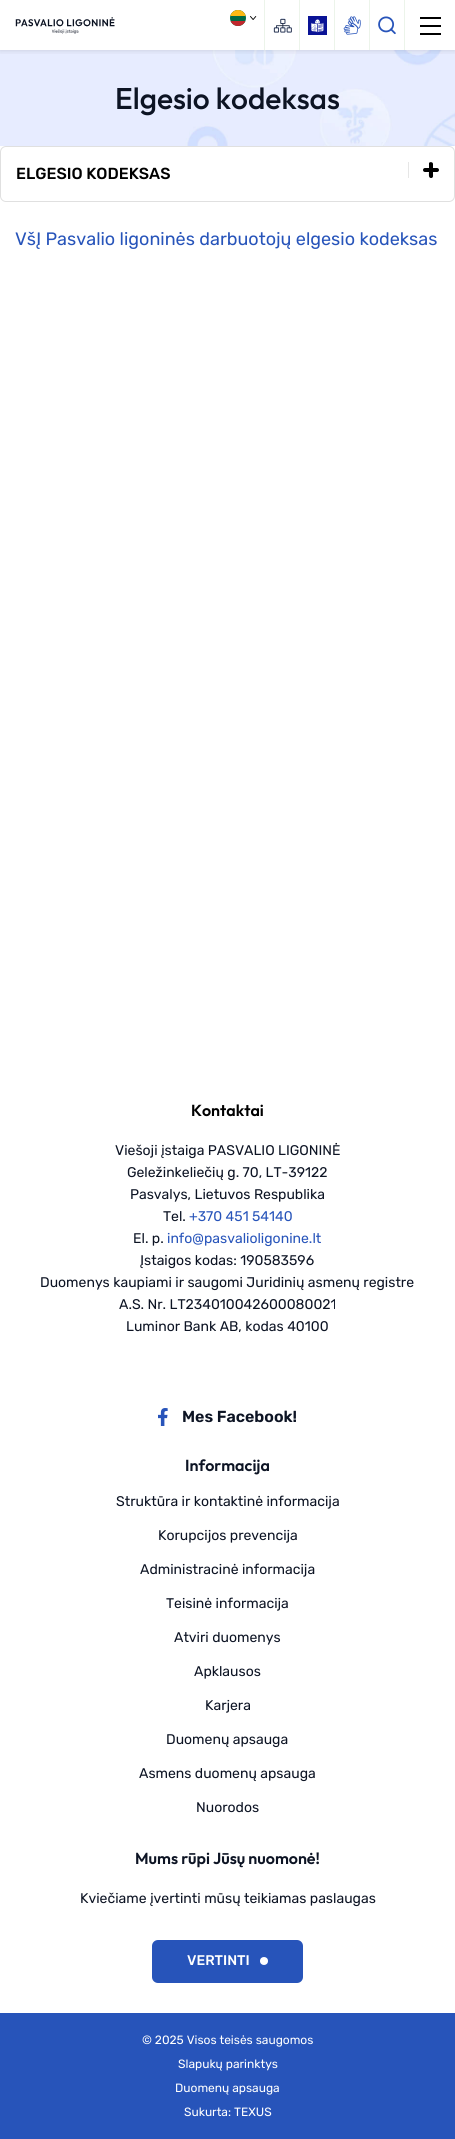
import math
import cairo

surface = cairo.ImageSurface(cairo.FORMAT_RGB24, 455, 2139)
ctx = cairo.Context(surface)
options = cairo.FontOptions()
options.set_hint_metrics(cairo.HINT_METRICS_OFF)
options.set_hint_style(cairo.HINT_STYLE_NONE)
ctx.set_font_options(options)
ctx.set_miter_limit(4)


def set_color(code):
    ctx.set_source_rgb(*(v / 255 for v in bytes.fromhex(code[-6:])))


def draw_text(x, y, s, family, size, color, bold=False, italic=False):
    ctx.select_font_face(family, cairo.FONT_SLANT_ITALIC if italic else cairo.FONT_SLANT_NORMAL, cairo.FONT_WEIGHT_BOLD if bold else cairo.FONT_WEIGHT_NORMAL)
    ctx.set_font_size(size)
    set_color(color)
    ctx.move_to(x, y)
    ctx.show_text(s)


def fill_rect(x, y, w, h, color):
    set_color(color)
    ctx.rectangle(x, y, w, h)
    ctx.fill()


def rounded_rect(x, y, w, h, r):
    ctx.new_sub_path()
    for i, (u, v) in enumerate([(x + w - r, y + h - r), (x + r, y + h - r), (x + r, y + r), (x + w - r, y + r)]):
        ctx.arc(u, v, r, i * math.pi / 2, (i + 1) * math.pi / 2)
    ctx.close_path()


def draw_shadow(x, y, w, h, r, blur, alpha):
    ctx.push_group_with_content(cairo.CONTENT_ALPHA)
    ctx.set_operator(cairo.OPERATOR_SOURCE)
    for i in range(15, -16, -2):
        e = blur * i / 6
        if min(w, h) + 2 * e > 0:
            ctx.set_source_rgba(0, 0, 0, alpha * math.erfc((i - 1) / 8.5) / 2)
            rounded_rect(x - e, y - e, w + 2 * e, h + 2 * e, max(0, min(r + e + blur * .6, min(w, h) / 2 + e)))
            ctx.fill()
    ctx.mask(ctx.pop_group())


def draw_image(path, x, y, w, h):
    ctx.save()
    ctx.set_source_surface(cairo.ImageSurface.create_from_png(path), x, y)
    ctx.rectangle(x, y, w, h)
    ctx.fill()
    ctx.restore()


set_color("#ffffff")
ctx.paint()
draw_image("assets/img7.png", 0, 50, 455, 96)
ctx.save()
ctx.rectangle(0, 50, 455, 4)
ctx.clip()
set_color("#000000")
draw_shadow(0, 0, 455, 50, 0, 3.5, 0.15)
ctx.restore()
fill_rect(264, 0, 1, 50, "#ecf4ea")
set_color("#006a44")
ctx.arc(238, 18, 8, 0, 2 * math.pi)
ctx.fill()
ctx.save()
rounded_rect(230, 10, 16, 16, 8)
ctx.clip()
fill_rect(230, 21, 16, 5, "#c1272d")
fill_rect(230, 10, 16, 6, "#fdb913")
ctx.restore()
draw_image("assets/img1.png", 250, 16, 7, 4)
fill_rect(299, 0, 1, 50, "#ecf4ea")
draw_image("assets/img2.png", 273, 18, 19, 15)
fill_rect(334, 0, 1, 50, "#ecf4ea")
draw_image("assets/img3.png", 308, 16, 19, 19)
fill_rect(369, 0, 1, 50, "#ecf4ea")
draw_image("assets/img4.png", 343, 16, 18, 19)
fill_rect(404, 0, 1, 50, "#ecf4ea")
draw_image("assets/img5.png", 378, 16, 18, 19)
draw_image("assets/img6.png", 15, 17, 100, 17)
fill_rect(420, 17, 21, 2, "#000000")
fill_rect(420, 25, 21, 2, "#000000")
fill_rect(420, 33, 21, 2, "#000000")
draw_text(115, 109, "Elgesio kodeksas", "Outfit Medium", 30, "#0d1424")
rounded_rect(0.5, 146.5, 454, 55, 5.5)
set_color("#e0e0e0")
ctx.set_line_width(1)
ctx.stroke()
draw_text(16, 179, "ELGESIO KODEKSAS", "Rubik Medium", 16, "#000000")
fill_rect(408, 162, 1, 16, "#e6e6e6")
set_color("#000000")
rounded_rect(423, 168, 16, 4, 2)
ctx.fill()
ctx.new_path()
ctx.move_to(433, 164)
ctx.line_to(433, 174)
ctx.curve_to(433, 175.5, 433.5, 177.5, 431.5, 178)
ctx.curve_to(428, 178.5, 429, 173.5, 429, 172)
ctx.line_to(429, 163)
ctx.curve_to(430, 161.5, 433, 162, 433, 164)
ctx.close_path()
ctx.fill()
draw_text(15, 245, "VšĮ Pasvalio ligoninės darbuotojų elgesio kodeksas", "Rubik", 18, "#2754ba")
draw_text(191, 1116, "Kontaktai", "Outfit SemiBold", 16, "#000000")
draw_text(115, 1155, "Viešoji įstaiga PASVALIO LIGONINĖ", "Rubik", 14, "#0d1424")
draw_text(127, 1177, "Geležinkeliečių g. 70, LT-39122", "Rubik", 14, "#0d1424")
draw_text(130, 1199, "Pasvalys, Lietuvos Respublika", "Rubik", 14, "#0d1424")
draw_text(163, 1221, "Tel.", "Rubik", 14, "#0d1424")
draw_text(189, 1221, "+370 451 54140", "Rubik", 14, "#2754ba")
draw_text(133, 1243, "El. p.", "Rubik", 14, "#0d1424")
draw_text(167, 1243, "info@pasvalioligonine.lt", "Rubik", 14, "#2754ba")
draw_text(140, 1265, "Įstaigos kodas: 190583596", "Rubik", 14, "#0d1424")
draw_text(40, 1287, "Duomenys kaupiami ir saugomi Juridinių asmenų registre", "Rubik", 14, "#0d1424")
draw_text(119, 1309, "A.S. Nr. LT234010042600080021", "Rubik", 14, "#0d1424")
draw_text(126, 1331, "Luminor Bank AB, kodas 40100", "Rubik", 14, "#0d1424")
draw_image("assets/img8.png", 158, 1408, 10, 18)
draw_text(182, 1422, "Mes Facebook!", "Rubik SemiBold", 16, "#0d1424")
draw_text(185, 1471, "Informacija", "Outfit SemiBold", 16, "#0d1424")
draw_text(116, 1506, "Struktūra ir kontaktinė informacija", "Rubik", 14, "#0d1424")
draw_text(158, 1540, "Korupcijos prevencija", "Rubik", 14, "#0d1424")
draw_text(140, 1574, "Administracinė informacija", "Rubik", 14, "#0d1424")
draw_text(166, 1608, "Teisinė informacija", "Rubik", 14, "#0d1424")
draw_text(174, 1642, "Atviri duomenys", "Rubik", 14, "#0d1424")
draw_text(194, 1676, "Apklausos", "Rubik", 14, "#0d1424")
draw_text(205, 1710, "Karjera", "Rubik", 14, "#0d1424")
draw_text(166, 1744, "Duomenų apsauga", "Rubik", 14, "#0d1424")
draw_text(139, 1778, "Asmens duomenų apsauga", "Rubik", 14, "#0d1424")
draw_text(196, 1812, "Nuorodos", "Rubik", 14, "#0d1424")
draw_text(135, 1864, "Mums rūpi Jūsų nuomonė!", "Outfit SemiBold", 16, "#0d1424")
draw_text(80, 1903, "Kviečiame įvertinti mūsų teikiamas paslaugas", "Rubik", 14, "#0d1424")
set_color("#2754ba")
rounded_rect(152, 1940, 151, 43, 6)
ctx.fill()
draw_text(187, 1965, "VERTINTI", "Rubik Medium", 14, "#ffffff")
ctx.new_path()
ctx.arc(264, 1961, 4, 0, 2 * math.pi)
ctx.fill()
fill_rect(0, 2013, 455, 126, "#2754ba")
draw_text(142, 2044, "© 2025 Visos teisės saugomos", "Rubik", 12, "#ffffff")
draw_text(178, 2068, "Slapukų parinktys", "Rubik", 12, "#ffffff")
draw_text(175, 2092, "Duomenų apsauga", "Rubik", 12, "#ffffff")
draw_text(184, 2116, "Sukurta: TEXUS", "Rubik", 12, "#ffffff")
surface.write_to_png("output.png")
